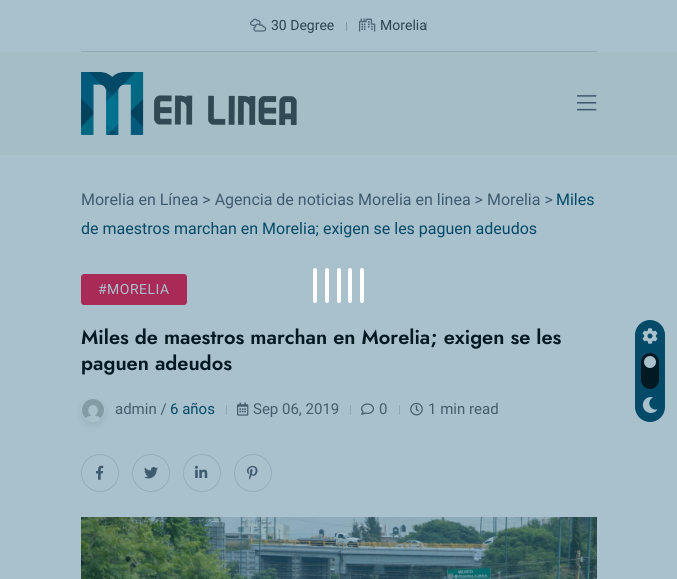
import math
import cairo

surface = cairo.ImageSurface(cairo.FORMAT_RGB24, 677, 579)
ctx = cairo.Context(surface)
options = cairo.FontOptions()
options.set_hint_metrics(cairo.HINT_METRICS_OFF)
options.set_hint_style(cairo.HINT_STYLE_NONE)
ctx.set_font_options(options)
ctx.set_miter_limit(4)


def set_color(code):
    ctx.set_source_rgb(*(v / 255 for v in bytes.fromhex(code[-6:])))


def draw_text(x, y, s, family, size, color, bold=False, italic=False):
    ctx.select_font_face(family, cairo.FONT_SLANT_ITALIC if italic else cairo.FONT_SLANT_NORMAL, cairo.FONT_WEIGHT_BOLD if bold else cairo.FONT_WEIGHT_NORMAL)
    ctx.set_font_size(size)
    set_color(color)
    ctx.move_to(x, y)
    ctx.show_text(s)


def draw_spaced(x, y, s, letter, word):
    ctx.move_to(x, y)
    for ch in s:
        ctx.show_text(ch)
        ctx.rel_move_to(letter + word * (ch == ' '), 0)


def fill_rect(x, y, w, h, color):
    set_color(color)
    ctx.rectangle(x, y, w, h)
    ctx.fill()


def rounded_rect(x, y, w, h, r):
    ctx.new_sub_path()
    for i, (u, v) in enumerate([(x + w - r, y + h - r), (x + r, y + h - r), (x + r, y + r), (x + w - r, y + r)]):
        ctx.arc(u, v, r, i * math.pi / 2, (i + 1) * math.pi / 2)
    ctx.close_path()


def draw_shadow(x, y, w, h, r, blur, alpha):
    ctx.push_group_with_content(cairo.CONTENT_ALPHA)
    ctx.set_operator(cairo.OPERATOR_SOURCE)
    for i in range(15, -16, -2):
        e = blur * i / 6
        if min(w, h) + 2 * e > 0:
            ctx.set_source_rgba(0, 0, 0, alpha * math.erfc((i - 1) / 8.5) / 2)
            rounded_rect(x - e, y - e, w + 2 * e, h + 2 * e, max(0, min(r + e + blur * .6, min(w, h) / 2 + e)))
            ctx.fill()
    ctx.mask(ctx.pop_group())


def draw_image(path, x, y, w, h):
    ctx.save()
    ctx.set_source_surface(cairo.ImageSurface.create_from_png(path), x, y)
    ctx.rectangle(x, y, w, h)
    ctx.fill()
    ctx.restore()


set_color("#a9c1cc")
ctx.paint()
fill_rect(81, 51, 516, 1, "#93abb5")
draw_image("assets/img1.png", 250, 18, 17, 14)
draw_text(271, 30, "30 Degree", "Roboto", 14, "#2a4350")
fill_rect(346, 22, 1, 9, "#829ba5")
draw_image("assets/img2.png", 359, 18, 17, 14)
draw_text(380, 30, "Morelia", "Roboto", 14, "#2a4350")
fill_rect(426, 22, 1, 9, "#829ba5")
fill_rect(0, 52, 677, 103, "#a5bdc7")
draw_image("assets/img3.png", 81, 72, 216, 63)
draw_image("assets/img4.png", 577, 95, 20, 16)
draw_text(81, 205, "Morelia en Línea > Agencia de noticias Morelia en linea > Morelia >", "Roboto", 16, "#3e5a6f")
draw_text(556, 205, "Miles", "Roboto", 16, "#034a68")
draw_text(81, 234, "de maestros marchan en Morelia; exigen se les paguen adeudos", "Roboto", 16, "#034a68")
set_color("#ffffff")
rounded_rect(313, 268, 4, 35, 2)
ctx.fill()
rounded_rect(325, 268, 4, 35, 2)
ctx.fill()
rounded_rect(337, 268, 4, 35, 2)
ctx.fill()
rounded_rect(348, 268, 4, 35, 2)
ctx.fill()
rounded_rect(360, 268, 4, 35, 2)
ctx.fill()
set_color("#a92957")
rounded_rect(81, 274, 106, 31, 3)
ctx.fill()
ctx.set_font_size(14)
set_color("#a9c1cc")
draw_spaced(98, 294, "#MORELIA", 0.5, 0)
draw_text(81, 344, "Miles de maestros marchan en Morelia; exigen se les", "Jost SemiBold", 20, "#011923")
draw_text(81, 370, "paguen adeudos", "Jost SemiBold", 20, "#011923")
set_color("#011923")
draw_shadow(81, 402, 24, 24, 12, 3.5, 0.08)
set_color("#a9c1cc")
ctx.arc(93, 410, 12, 0, 2 * math.pi)
ctx.fill()
draw_image("assets/img5.png", 82, 399, 22, 22)
draw_text(115, 414, "admin /", "Roboto", 15, "#445d6b")
draw_text(170, 414, "6 años", "Roboto", 15, "#034a68")
fill_rect(226, 405, 1, 10, "#90a9b5")
draw_image("assets/img6.png", 237, 402, 12, 14)
draw_text(253, 414, "Sep 06, 2019", "Roboto", 15, "#445d6b")
fill_rect(350, 405, 1, 10, "#90a9b5")
draw_image("assets/img7.png", 361, 403, 13, 12)
draw_text(379, 414, "0", "Roboto", 15, "#445d6b")
fill_rect(399, 405, 1, 10, "#90a9b5")
draw_image("assets/img8.png", 410, 402, 13, 14)
draw_text(428, 414, "1 min read", "Roboto", 15, "#445d6b")
ctx.new_path()
ctx.arc(100, 473, 18.5, 0, 2 * math.pi)
set_color("#96adb7")
ctx.set_line_width(1)
ctx.stroke()
draw_image("assets/img9.png", 96, 465, 8, 15)
ctx.arc(151, 473, 18.5, 0, 2 * math.pi)
ctx.stroke()
draw_image("assets/img10.png", 144, 467, 14, 12)
ctx.arc(202, 473, 18.5, 0, 2 * math.pi)
ctx.stroke()
draw_image("assets/img11.png", 195, 465, 13, 13)
ctx.arc(253, 473, 18.5, 0, 2 * math.pi)
ctx.stroke()
draw_image("assets/img12.png", 247, 465, 11, 15)
draw_image("assets/img13.png", 81, 517, 516, 62)
set_color("#034a68")
rounded_rect(635, 320, 30, 102, 15)
ctx.fill()
draw_image("assets/img14.png", 642, 328, 16, 16)
set_color("#011923")
rounded_rect(641, 353, 18, 36, 9)
ctx.fill()
set_color("#a9c1cc")
ctx.arc(650, 362, 6, 0, 2 * math.pi)
ctx.fill()
draw_image("assets/img15.png", 642, 397, 16, 16)
surface.write_to_png("output.png")
